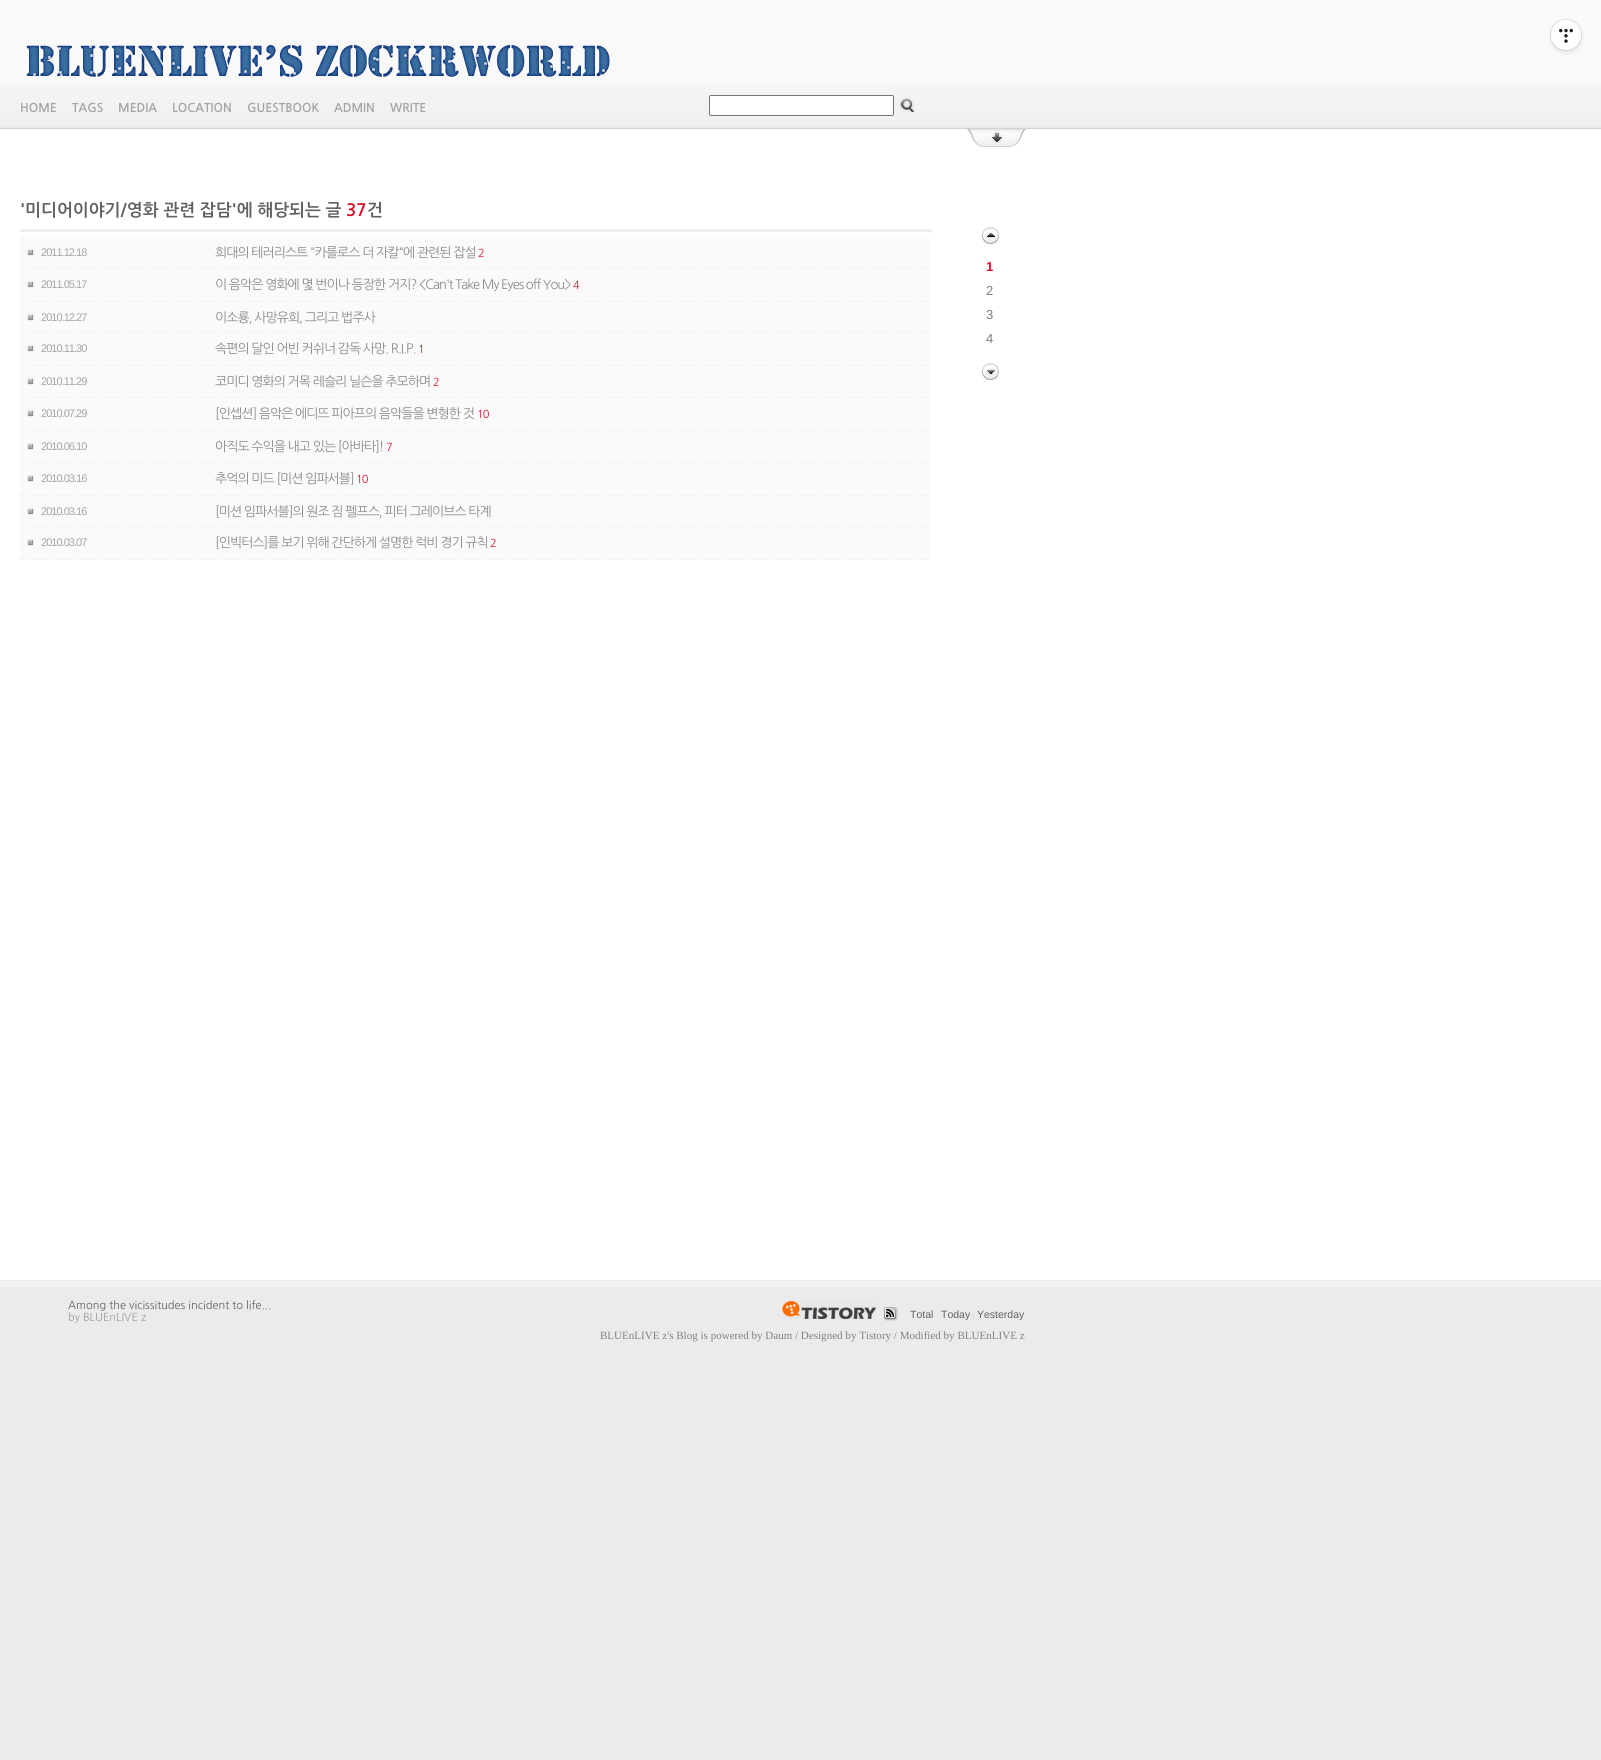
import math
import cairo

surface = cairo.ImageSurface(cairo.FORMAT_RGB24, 1601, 1760)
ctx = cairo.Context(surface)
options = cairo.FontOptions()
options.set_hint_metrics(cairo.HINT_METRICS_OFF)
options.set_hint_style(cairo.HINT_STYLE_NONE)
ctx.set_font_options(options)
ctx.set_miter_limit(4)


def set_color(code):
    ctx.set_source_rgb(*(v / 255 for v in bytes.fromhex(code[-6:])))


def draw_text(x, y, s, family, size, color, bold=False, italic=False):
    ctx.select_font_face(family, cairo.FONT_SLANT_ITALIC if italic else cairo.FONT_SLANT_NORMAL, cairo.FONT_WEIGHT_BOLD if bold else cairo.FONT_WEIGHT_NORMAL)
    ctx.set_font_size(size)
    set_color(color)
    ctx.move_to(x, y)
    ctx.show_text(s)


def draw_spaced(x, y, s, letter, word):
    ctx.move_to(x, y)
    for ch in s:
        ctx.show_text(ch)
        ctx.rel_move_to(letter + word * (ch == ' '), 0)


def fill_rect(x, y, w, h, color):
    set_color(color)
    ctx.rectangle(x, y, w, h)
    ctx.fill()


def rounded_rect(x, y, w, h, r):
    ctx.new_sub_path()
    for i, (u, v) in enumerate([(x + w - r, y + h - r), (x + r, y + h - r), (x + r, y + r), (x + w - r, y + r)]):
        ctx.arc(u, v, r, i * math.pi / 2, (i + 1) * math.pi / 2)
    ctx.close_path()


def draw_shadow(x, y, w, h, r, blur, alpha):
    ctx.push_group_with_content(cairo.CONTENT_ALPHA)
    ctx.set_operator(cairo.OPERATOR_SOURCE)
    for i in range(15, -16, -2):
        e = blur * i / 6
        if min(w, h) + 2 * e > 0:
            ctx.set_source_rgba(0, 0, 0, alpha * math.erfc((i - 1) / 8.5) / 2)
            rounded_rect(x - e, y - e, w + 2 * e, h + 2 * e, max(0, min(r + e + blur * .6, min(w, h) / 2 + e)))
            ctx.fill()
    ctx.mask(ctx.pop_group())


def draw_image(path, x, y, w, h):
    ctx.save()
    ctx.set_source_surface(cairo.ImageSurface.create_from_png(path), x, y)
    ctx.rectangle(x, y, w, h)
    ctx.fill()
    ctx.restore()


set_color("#ebebeb")
ctx.paint()
fill_rect(0, 0, 1601, 84, "#f9f9f9")
set_color("#000000")
draw_shadow(1551, 22, 30, 30, 15, 2.5, 0.1)
ctx.arc(1566, 35, 15.5, 0, 2 * math.pi)
ctx.set_source_rgba(0, 0, 0, 0.1)
ctx.set_line_width(1)
ctx.stroke()
set_color("#ffffff")
ctx.arc(1566, 35, 15, 0, 2 * math.pi)
ctx.fill()
draw_image("assets/img1.png", 1559, 28, 14, 15)
draw_image("assets/img2.png", 0, 84, 1601, 45)
draw_image("assets/img3.png", 26, 45, 584, 32)
draw_text(20, 112, "HOME", "NanumGothic", 12, "#a5a5a5", bold=True)
draw_text(72, 112, "TAGS", "NanumGothic", 12, "#a5a5a5", bold=True)
draw_text(118, 112, "MEDIA", "NanumGothic", 12, "#a5a5a5", bold=True)
draw_text(172, 112, "LOCATION", "NanumGothic", 12, "#a5a5a5", bold=True)
draw_text(247, 112, "GUESTBOOK", "NanumGothic", 12, "#a5a5a5", bold=True)
draw_text(334, 112, "ADMIN", "NanumGothic", 12, "#a5a5a5", bold=True)
draw_text(390, 112, "WRITE", "NanumGothic", 12, "#a5a5a5", bold=True)
set_color("#ffffff")
rounded_rect(709.5, 95.5, 184, 20, 1.5)
ctx.fill_preserve()
set_color("#767676")
ctx.stroke()
draw_image("assets/img4.png", 899, 97, 16, 16)
fill_rect(0, 129, 1601, 1151, "#ffffff")
draw_image("assets/img5.png", 967, 129, 59, 18)
fill_rect(20, 229, 912, 3, "#f1f1f1")
draw_text(20, 216, "'미디어이야기/영화 관련 잡담'에 해당되는 글", "NanumGothic", 16.9, "#616161", bold=True)
draw_text(346, 216, "37", "NanumGothic", 16.9, "#dc0a25", bold=True)
draw_text(367, 216, "건", "NanumGothic", 16.9, "#616161", bold=True)
fill_rect(20, 237, 910, 322, "#fafafa")
draw_image("assets/img6.png", 20, 268, 910, 1)
draw_image("assets/img7.png", 26, 248, 9, 9)
ctx.select_font_face("Liberation Sans")
ctx.set_font_size(11.05)
set_color("#a5a5a5")
draw_spaced(41, 256, "2011.12.18", -1, 0)
ctx.select_font_face("NanumGothic")
ctx.set_font_size(13)
set_color("#8b8a8a")
draw_spaced(215, 257, "희대의 테러리스트 \"카를로스 더 자칼\"에 관련된 잡설", -1, 0)
ctx.set_font_size(11)
set_color("#dc0a25")
draw_spaced(478, 257, "2", -1, 0)
draw_image("assets/img6.png", 20, 301, 910, 1)
draw_image("assets/img7.png", 26, 280, 9, 9)
ctx.select_font_face("Liberation Sans")
ctx.set_font_size(11.05)
set_color("#a5a5a5")
draw_spaced(41, 288, "2011.05.17", -1, 0)
ctx.select_font_face("NanumGothic")
ctx.set_font_size(13)
set_color("#8b8a8a")
draw_spaced(215, 289, "이 음악은 영화에 몇 번이나 등장한 거지? <Can't Take My Eyes off You>", -1, 0)
ctx.set_font_size(11)
set_color("#dc0a25")
draw_spaced(573, 289, "4", -1, 0)
draw_image("assets/img6.png", 20, 332, 910, 1)
draw_image("assets/img7.png", 26, 313, 9, 9)
ctx.select_font_face("Liberation Sans")
ctx.set_font_size(11.05)
set_color("#a5a5a5")
draw_spaced(41, 321, "2010.12.27", -1, 0)
ctx.select_font_face("NanumGothic")
ctx.set_font_size(13)
set_color("#8b8a8a")
draw_spaced(215, 322, "이소룡, 사망유희, 그리고 법주사", -1, 0)
draw_image("assets/img6.png", 20, 365, 910, 1)
draw_image("assets/img7.png", 26, 344, 9, 9)
ctx.select_font_face("Liberation Sans")
ctx.set_font_size(11.05)
set_color("#a5a5a5")
draw_spaced(41, 352, "2010.11.30", -1, 0)
ctx.select_font_face("NanumGothic")
ctx.set_font_size(13)
set_color("#8b8a8a")
draw_spaced(215, 353, "속편의 달인 어빈 커쉬너 감독 사망. R.I.P.", -1, 0)
ctx.set_font_size(11)
set_color("#dc0a25")
draw_spaced(418, 353, "1", -1, 0)
draw_image("assets/img6.png", 20, 397, 910, 1)
draw_image("assets/img7.png", 26, 377, 9, 9)
ctx.select_font_face("Liberation Sans")
ctx.set_font_size(11.05)
set_color("#a5a5a5")
draw_spaced(41, 385, "2010.11.29", -1, 0)
ctx.select_font_face("NanumGothic")
ctx.set_font_size(13)
set_color("#8b8a8a")
draw_spaced(215, 386, "코미디 영화의 거목 레슬리 닐슨을 추모하며", -1, 0)
ctx.set_font_size(11)
set_color("#dc0a25")
draw_spaced(433, 386, "2", -1, 0)
draw_image("assets/img6.png", 20, 430, 910, 1)
draw_image("assets/img7.png", 26, 409, 9, 9)
ctx.select_font_face("Liberation Sans")
ctx.set_font_size(11.05)
set_color("#a5a5a5")
draw_spaced(41, 417, "2010.07.29", -1, 0)
ctx.select_font_face("NanumGothic")
ctx.set_font_size(13)
set_color("#8b8a8a")
draw_spaced(215, 418, "[인셉션] 음악은 에디뜨 피아프의 음악들을 변형한 것", -1, 0)
ctx.set_font_size(11)
set_color("#dc0a25")
draw_spaced(477, 418, "10", -1, 0)
draw_image("assets/img6.png", 20, 462, 910, 1)
draw_image("assets/img7.png", 26, 442, 9, 9)
ctx.select_font_face("Liberation Sans")
ctx.set_font_size(11.05)
set_color("#a5a5a5")
draw_spaced(41, 450, "2010.06.10", -1, 0)
ctx.select_font_face("NanumGothic")
ctx.set_font_size(13)
set_color("#8b8a8a")
draw_spaced(215, 451, "아직도 수익을 내고 있는 [아바타]!", -1, 0)
ctx.set_font_size(11)
set_color("#dc0a25")
draw_spaced(386, 451, "7", -1, 0)
draw_image("assets/img6.png", 20, 495, 910, 1)
draw_image("assets/img7.png", 26, 474, 9, 9)
ctx.select_font_face("Liberation Sans")
ctx.set_font_size(11.05)
set_color("#a5a5a5")
draw_spaced(41, 482, "2010.03.16", -1, 0)
ctx.select_font_face("NanumGothic")
ctx.set_font_size(13)
set_color("#8b8a8a")
draw_spaced(215, 483, "추억의 미드 [미션 임파서블]", -1, 0)
ctx.set_font_size(11)
set_color("#dc0a25")
draw_spaced(356, 483, "10", -1, 0)
draw_image("assets/img6.png", 20, 526, 910, 1)
draw_image("assets/img7.png", 26, 507, 9, 9)
ctx.select_font_face("Liberation Sans")
ctx.set_font_size(11.05)
set_color("#a5a5a5")
draw_spaced(41, 515, "2010.03.16", -1, 0)
ctx.select_font_face("NanumGothic")
ctx.set_font_size(13)
set_color("#8b8a8a")
draw_spaced(215, 516, "[미션 임파서블]의 원조 짐 펠프스, 피터 그레이브스 타계", -1, 0)
draw_image("assets/img6.png", 20, 559, 910, 1)
draw_image("assets/img7.png", 26, 538, 9, 9)
ctx.select_font_face("Liberation Sans")
ctx.set_font_size(11.05)
set_color("#a5a5a5")
draw_spaced(41, 546, "2010.03.07", -1, 0)
ctx.select_font_face("NanumGothic")
ctx.set_font_size(13)
set_color("#8b8a8a")
draw_spaced(215, 547, "[인빅터스]를 보기 위해 간단하게 설명한 럭비 경기 규칙", -1, 0)
ctx.set_font_size(11)
set_color("#dc0a25")
draw_spaced(490, 547, "2", -1, 0)
draw_image("assets/img8.png", 982, 227, 17, 17)
draw_text(986, 271, "1", "Liberation Sans", 13, "#dc0a25", bold=True)
draw_text(986, 295, "2", "Liberation Sans", 13, "#7b7b7b")
draw_text(986, 319, "3", "Liberation Sans", 13, "#7b7b7b")
draw_text(986, 343, "4", "Liberation Sans", 13, "#7b7b7b")
draw_image("assets/img9.png", 982, 363, 17, 17)
fill_rect(0, 1281, 1601, 6, "#f3f3f3")
draw_text(68, 1309, "Among the vicissitudes incident to life...", "NanumGothic", 11.05, "#616161")
draw_text(68, 1321, "by BLUEnLIVE z", "NanumGothic", 11.05, "#9e9e9e")
draw_image("assets/img10.png", 782, 1301, 94, 18)
draw_image("assets/img11.png", 884, 1307, 14, 14)
draw_text(910, 1318, "Total", "Liberation Sans", 10.5, "#616161")
draw_text(941, 1318, "Today", "Liberation Sans", 10.5, "#616161")
draw_text(973, 1318, "|", "Liberation Serif", 8, "#c1c0c0")
draw_text(977, 1318, "Yesterday", "Liberation Sans", 10.5, "#616161")
draw_text(600, 1339, "BLUEnLIVE z's Blog is powered by Daum / Designed by Tistory / Modified by BLUEnLIVE z", "Liberation Serif", 11.05, "#818181")
surface.write_to_png("output.png")
